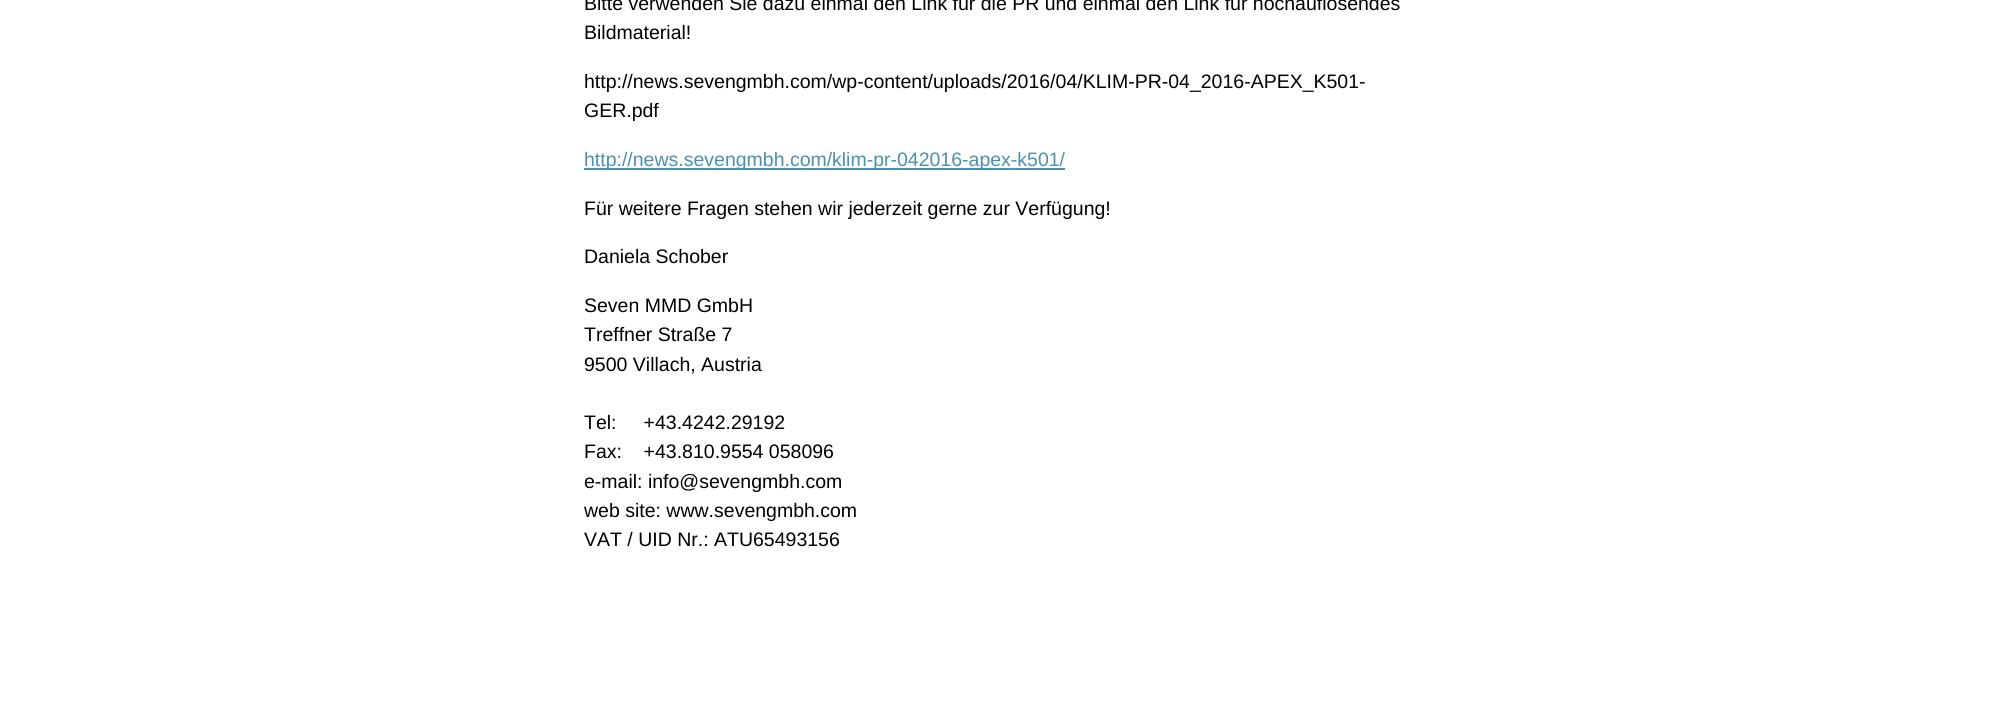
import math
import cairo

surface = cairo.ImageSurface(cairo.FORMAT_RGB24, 2015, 721)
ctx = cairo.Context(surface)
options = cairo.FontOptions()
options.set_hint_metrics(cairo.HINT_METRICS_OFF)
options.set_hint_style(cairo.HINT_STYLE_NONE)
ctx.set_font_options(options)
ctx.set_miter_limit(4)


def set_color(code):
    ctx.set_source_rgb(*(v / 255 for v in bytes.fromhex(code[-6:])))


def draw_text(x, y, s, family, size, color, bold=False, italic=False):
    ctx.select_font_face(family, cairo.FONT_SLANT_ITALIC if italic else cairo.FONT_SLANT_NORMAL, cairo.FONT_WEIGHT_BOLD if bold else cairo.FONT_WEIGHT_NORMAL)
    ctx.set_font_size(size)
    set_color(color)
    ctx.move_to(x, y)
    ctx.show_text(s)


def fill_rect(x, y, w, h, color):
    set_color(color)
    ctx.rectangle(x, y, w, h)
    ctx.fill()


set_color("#ffffff")
ctx.paint()
draw_text(584, 10, "Bitte verwenden Sie dazu einmal den Link für die PR und einmal den Link für hochauflösendes", "Liberation Sans", 19.5, "#000000")
draw_text(584, 39, "Bildmaterial!", "Liberation Sans", 19.5, "#000000")
draw_text(584, 88, "http://news.sevengmbh.com/wp-content/uploads/2016/04/KLIM-PR-04_2016-APEX_K501-", "Liberation Sans", 19.5, "#000000")
draw_text(584, 117, "GER.pdf", "Liberation Sans", 19.5, "#000000")
fill_rect(584, 168, 247, 2, "#4a91b0")
draw_text(584, 166, "http://news.sevengmbh.com/", "Liberation Sans", 19.5, "#4a91b0")
fill_rect(831, 168, 234, 2, "#4a91b0")
draw_text(832, 166, "klim-pr-042016-apex-k501/", "Liberation Sans", 19.5, "#4a91b0")
draw_text(584, 215, "Für weitere Fragen stehen wir jederzeit gerne zur Verfügung!", "Liberation Sans", 19.5, "#000000")
draw_text(584, 263, "Daniela Schober", "Liberation Sans", 19.5, "#000000")
draw_text(584, 312, "Seven MMD GmbH", "Liberation Sans", 19.5, "#000000")
draw_text(584, 341, "Treffner Straße 7", "Liberation Sans", 19.5, "#000000")
draw_text(584, 371, "9500 Villach, Austria", "Liberation Sans", 19.5, "#000000")
draw_text(584, 429, "Tel:     +43.4242.29192", "Liberation Sans", 19.5, "#000000")
draw_text(584, 458, "Fax:    +43.810.9554 058096", "Liberation Sans", 19.5, "#000000")
draw_text(584, 488, "e-mail: info@sevengmbh.com", "Liberation Sans", 19.5, "#000000")
draw_text(584, 517, "web site: www.sevengmbh.com", "Liberation Sans", 19.5, "#000000")
draw_text(584, 546, "VAT / UID Nr.: ATU65493156", "Liberation Sans", 19.5, "#000000")
surface.write_to_png("output.png")
